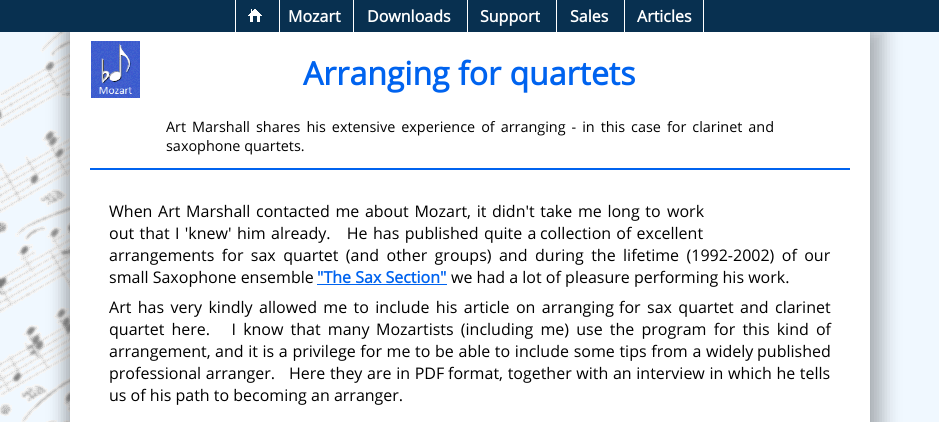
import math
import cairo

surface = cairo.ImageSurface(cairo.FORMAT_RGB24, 939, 422)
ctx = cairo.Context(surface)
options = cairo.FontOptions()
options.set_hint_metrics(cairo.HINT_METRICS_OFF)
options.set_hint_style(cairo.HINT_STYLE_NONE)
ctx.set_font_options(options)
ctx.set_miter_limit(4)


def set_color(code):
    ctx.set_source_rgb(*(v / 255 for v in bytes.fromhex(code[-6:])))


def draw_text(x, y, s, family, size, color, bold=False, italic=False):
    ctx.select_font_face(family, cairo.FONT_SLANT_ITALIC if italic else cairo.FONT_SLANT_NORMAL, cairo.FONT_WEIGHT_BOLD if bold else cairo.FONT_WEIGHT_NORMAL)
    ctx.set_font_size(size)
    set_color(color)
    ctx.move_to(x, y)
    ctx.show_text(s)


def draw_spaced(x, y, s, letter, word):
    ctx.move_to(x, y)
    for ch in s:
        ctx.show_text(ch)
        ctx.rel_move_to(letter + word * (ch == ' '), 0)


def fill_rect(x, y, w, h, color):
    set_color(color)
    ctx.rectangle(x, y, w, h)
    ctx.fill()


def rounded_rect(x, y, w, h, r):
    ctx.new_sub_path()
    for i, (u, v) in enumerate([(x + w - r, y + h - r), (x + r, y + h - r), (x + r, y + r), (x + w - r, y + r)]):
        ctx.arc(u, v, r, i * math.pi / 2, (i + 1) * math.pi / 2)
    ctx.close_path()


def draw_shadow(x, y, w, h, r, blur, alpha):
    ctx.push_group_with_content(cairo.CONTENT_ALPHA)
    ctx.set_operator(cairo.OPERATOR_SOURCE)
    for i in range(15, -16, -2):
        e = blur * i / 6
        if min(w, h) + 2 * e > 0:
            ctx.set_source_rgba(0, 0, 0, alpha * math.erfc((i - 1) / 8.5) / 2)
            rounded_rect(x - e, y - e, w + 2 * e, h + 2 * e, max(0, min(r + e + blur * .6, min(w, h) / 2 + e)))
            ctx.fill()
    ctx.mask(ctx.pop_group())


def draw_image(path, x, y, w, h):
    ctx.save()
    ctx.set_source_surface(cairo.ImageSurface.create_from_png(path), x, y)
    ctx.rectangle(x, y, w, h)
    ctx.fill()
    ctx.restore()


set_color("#f0f8ff")
ctx.paint()
draw_image("assets/img2.png", 0, 32, 70, 390)
set_color("#000000")
draw_shadow(62, 23, 808, 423, 0, 8, 0.2)
draw_shadow(70, 31, 816, 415, 0, 8, 0.2)
fill_rect(0, 0, 939, 32, "#083050")
fill_rect(235, 0, 1, 32, "#ffffff")
draw_image("assets/img1.png", 248, 9, 14, 13)
fill_rect(279, 0, 1, 32, "#ffffff")
draw_text(288, 22, "Mozart", "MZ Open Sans", 16, "#ffffff", bold=True)
fill_rect(353, 0, 1, 32, "#ffffff")
draw_text(367, 22, "Downloads", "MZ Open Sans", 16, "#ffffff", bold=True)
fill_rect(467, 0, 1, 32, "#ffffff")
draw_text(480, 22, "Support", "MZ Open Sans", 16, "#ffffff", bold=True)
fill_rect(556, 0, 1, 32, "#ffffff")
draw_text(570, 22, "Sales", "MZ Open Sans", 16, "#ffffff", bold=True)
fill_rect(703, 0, 1, 32, "#ffffff")
fill_rect(624, 0, 1, 32, "#ffffff")
draw_text(637, 22, "Articles", "MZ Open Sans", 16, "#ffffff", bold=True)
fill_rect(70, 32, 800, 390, "#ffffff")
draw_image("assets/img3.png", 91, 41, 49, 57)
draw_text(303, 85, "Arranging for quartets", "MZ Open Sans", 32, "#0063ef", bold=True)
ctx.select_font_face("MZ Open Sans")
ctx.set_font_size(14.4)
set_color("#000000")
draw_spaced(166, 132, "Art Marshall shares his extensive experience of arranging - in this case for clarinet and", 0, 2.25)
draw_text(166, 151, "saxophone quartets.", "MZ Open Sans", 14.4, "#000000")
fill_rect(90, 168, 760, 2, "#0063ef")
ctx.set_font_size(16)
set_color("#000000")
draw_spaced(109, 217, "When Art Marshall contacted me about Mozart, it didn't take me long to", 0, 1.5)
draw_text(667, 217, "work", "MZ Open Sans", 16, "#000000")
draw_spaced(109, 239, "out that I 'knew' him already.   He has published quite a", 0, 1.25)
draw_spaced(540, 239, "collection of excellent", 0, 1)
draw_spaced(109, 261, "arrangements for sax quartet (and other groups) and", 0, 3.25)
draw_spaced(535, 261, "during the lifetime (1992-2002) of our", 0, 3.25)
draw_text(109, 283, "small Saxophone ensemble", "MZ Open Sans", 16, "#000000")
draw_text(317, 283, "\"The Sax Section\"", "MZ Open Sans", 16, "#0063ef", bold=True)
fill_rect(317, 284, 130, 1, "#0063ef")
draw_text(451, 283, "we had a lot of pleasure performing his work.", "MZ Open Sans", 16, "#000000")
draw_spaced(109, 313, "Art has very kindly allowed me to include his article on arranging", 0, 2.25)
draw_spaced(619, 313, "for sax quartet and clarinet", 0, 2.25)
draw_spaced(109, 335, "quartet here.   I know that many", 0, 3)
draw_spaced(376, 335, "Mozartists (including me) use the program for this kind of", 0, 3)
draw_text(109, 357, "arrangement,", "MZ Open Sans", 16, "#000000")
draw_spaced(215, 357, "and it is a privilege for me to be able to include some tips from a widely", 0, 0.5)
draw_text(757, 357, "published", "MZ Open Sans", 16, "#000000")
draw_spaced(109, 379, "professional arranger.   Here they are in PDF", 0, 0.5)
draw_spaced(448, 379, "format, together with an interview in which he tells", 0, 0.5)
draw_text(109, 401, "us of his path to becoming an arranger.", "MZ Open Sans", 16, "#000000")
surface.write_to_png("output.png")
